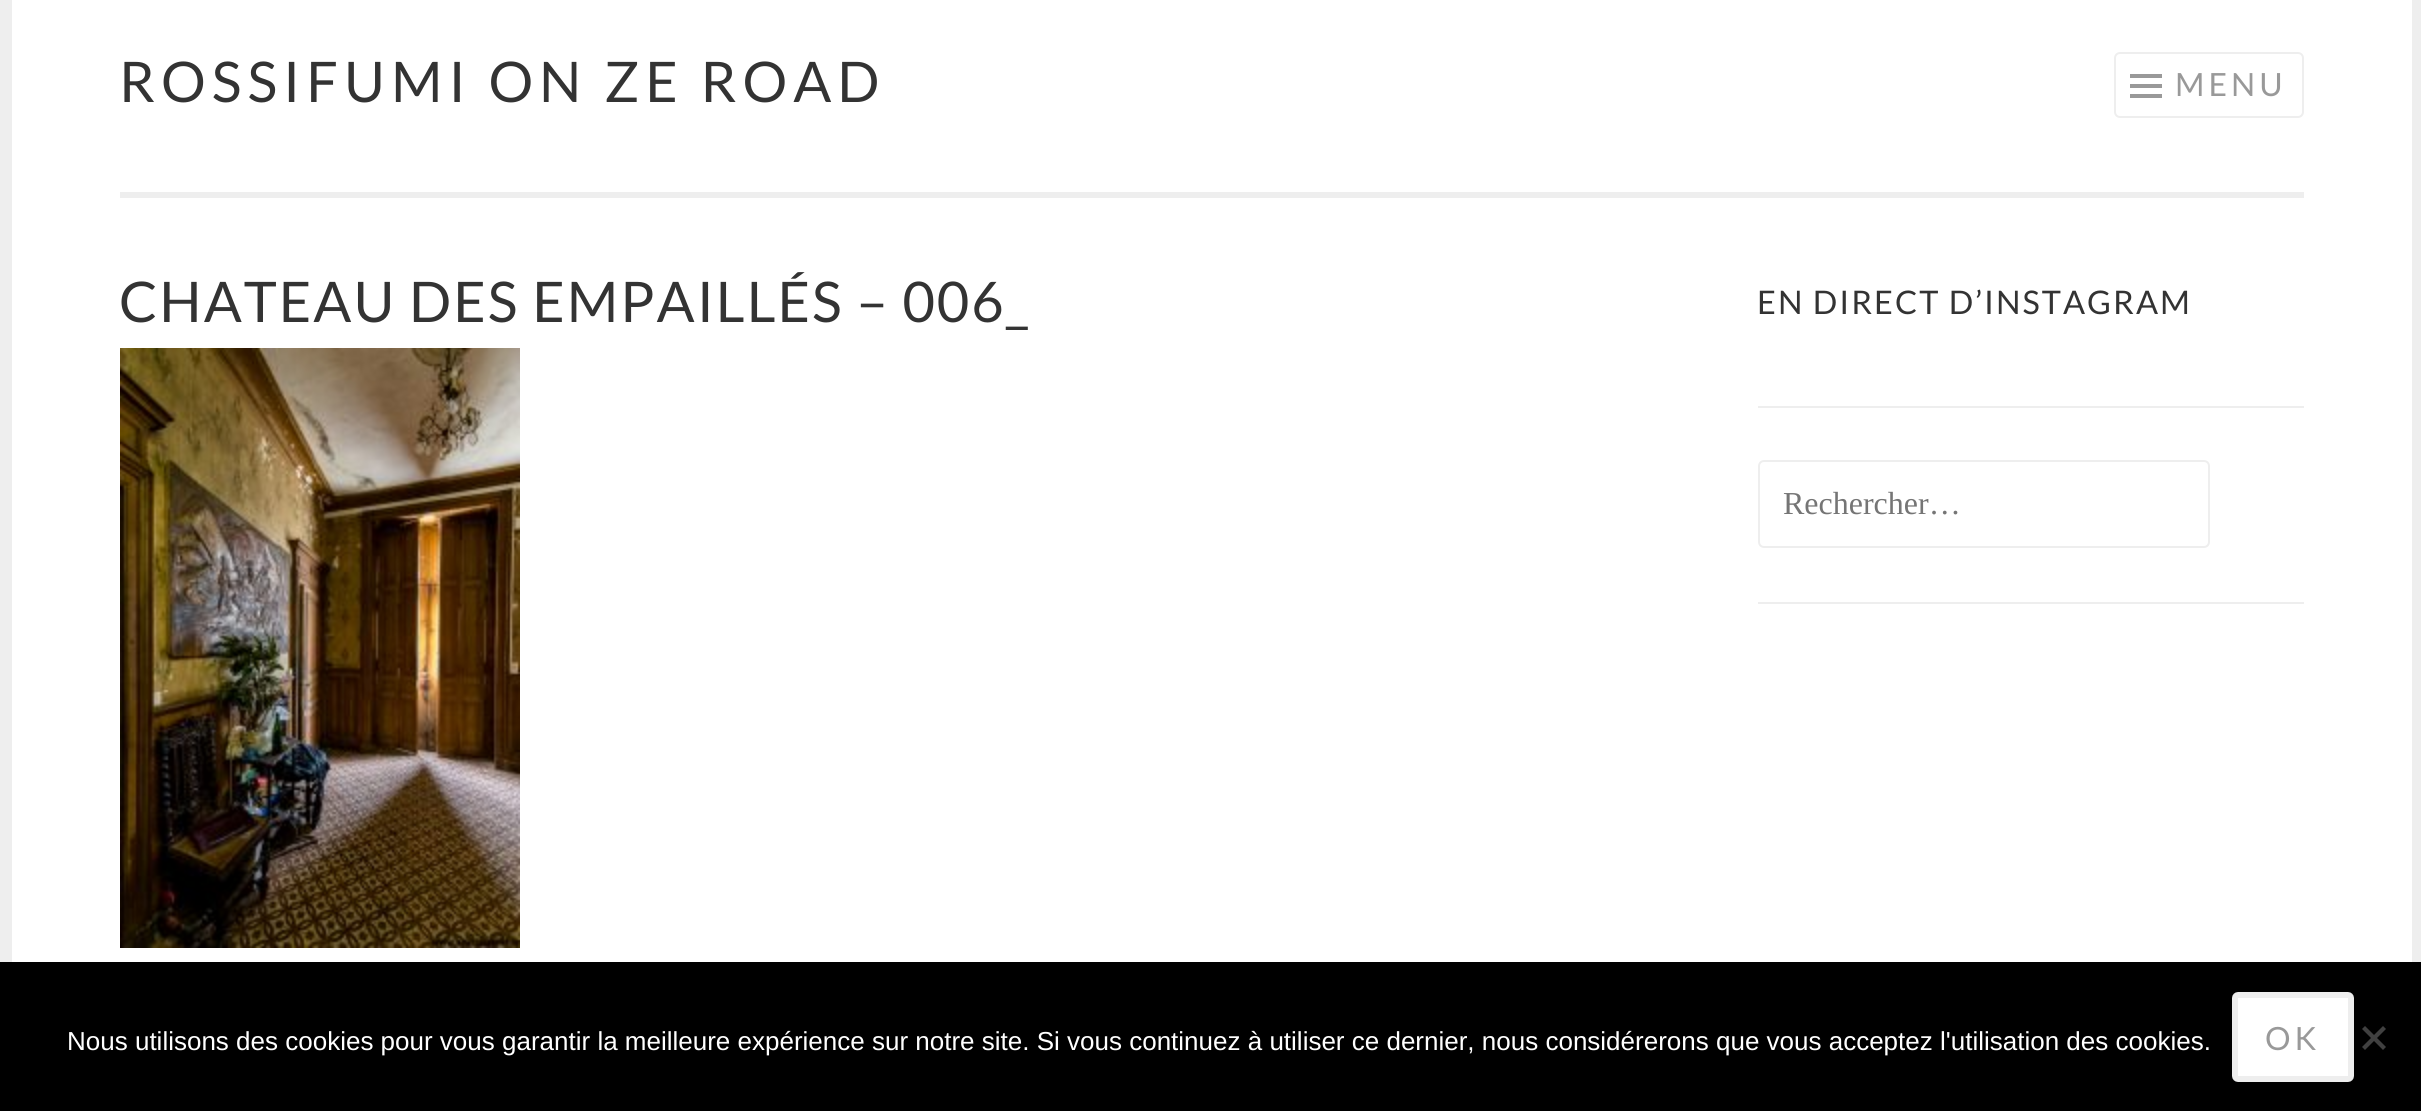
import math
import cairo

surface = cairo.ImageSurface(cairo.FORMAT_RGB24, 2421, 1111)
ctx = cairo.Context(surface)
options = cairo.FontOptions()
options.set_hint_metrics(cairo.HINT_METRICS_OFF)
options.set_hint_style(cairo.HINT_STYLE_NONE)
ctx.set_font_options(options)
ctx.set_miter_limit(4)


def set_color(code):
    ctx.set_source_rgb(*(v / 255 for v in bytes.fromhex(code[-6:])))


def draw_text(x, y, s, family, size, color, bold=False, italic=False):
    ctx.select_font_face(family, cairo.FONT_SLANT_ITALIC if italic else cairo.FONT_SLANT_NORMAL, cairo.FONT_WEIGHT_BOLD if bold else cairo.FONT_WEIGHT_NORMAL)
    ctx.set_font_size(size)
    set_color(color)
    ctx.move_to(x, y)
    ctx.show_text(s)


def draw_spaced(x, y, s, letter, word):
    ctx.move_to(x, y)
    for ch in s:
        ctx.show_text(ch)
        ctx.rel_move_to(letter + word * (ch == ' '), 0)


def fill_rect(x, y, w, h, color):
    set_color(color)
    ctx.rectangle(x, y, w, h)
    ctx.fill()


def rounded_rect(x, y, w, h, r):
    ctx.new_sub_path()
    for i, (u, v) in enumerate([(x + w - r, y + h - r), (x + r, y + h - r), (x + r, y + r), (x + w - r, y + r)]):
        ctx.arc(u, v, r, i * math.pi / 2, (i + 1) * math.pi / 2)
    ctx.close_path()


def draw_image(path, x, y, w, h):
    ctx.save()
    ctx.set_source_surface(cairo.ImageSurface.create_from_png(path), x, y)
    ctx.rectangle(x, y, w, h)
    ctx.fill()
    ctx.restore()


set_color("#eeeeee")
ctx.paint()
fill_rect(12, 0, 2400, 962, "#ffffff")
fill_rect(120, 192, 2184, 6, "#eeeeee")
ctx.select_font_face("Lato")
ctx.set_font_size(56)
set_color("#333333")
draw_spaced(119, 102, "ROSSIFUMI ON ZE ROAD", 6, 0)
rounded_rect(2115, 53, 188, 64, 5)
set_color("#eeeeee")
ctx.stroke()
draw_image("assets/img1.png", 2130, 74, 32, 24)
ctx.set_font_size(32)
set_color("#999999")
draw_spaced(2175, 96, "MENU", 4, 0)
ctx.set_font_size(56)
set_color("#333333")
draw_spaced(119, 322, "CHATEAU DES EMPAILLÉS – 006_", 2, 0)
draw_image("assets/img2.png", 120, 348, 400, 600)
fill_rect(1758, 406, 546, 2, "#eeeeee")
ctx.set_font_size(32.5)
set_color("#333333")
draw_spaced(1757, 314, "EN DIRECT D’INSTAGRAM", 2, 0)
fill_rect(1758, 602, 546, 2, "#eeeeee")
rounded_rect(1759, 461, 450, 86, 5)
ctx.stroke()
draw_text(1783, 514, "Rechercher…", "Liberation Serif", 32, "#757575")
fill_rect(0, 962, 2421, 149, "#000000")
draw_text(67, 1050, "Nous utilisons des cookies pour vous garantir la meilleure expérience sur notre site. Si vous continuez à utiliser ce dernier, nous considérerons que vous acceptez l'utilisation des cookies.", "Liberation Sans", 26, "#ffffff")
rounded_rect(2235, 995, 116, 84, 3)
ctx.fill_preserve()
set_color("#eeeeee")
ctx.set_line_width(6)
ctx.stroke()
ctx.select_font_face("Lato")
ctx.set_font_size(32)
set_color("#999999")
draw_spaced(2265, 1050, "OK", 4, 0)
set_color("#404040")
ctx.new_path()
ctx.move_to(2383, 1026)
ctx.line_to(2386, 1029)
ctx.line_to(2365, 1050)
ctx.line_to(2362, 1047)
ctx.close_path()
ctx.fill()
ctx.new_path()
ctx.move_to(2362, 1029)
ctx.line_to(2365, 1026)
ctx.line_to(2386, 1047)
ctx.line_to(2383, 1050)
ctx.close_path()
ctx.fill()
surface.write_to_png("output.png")
